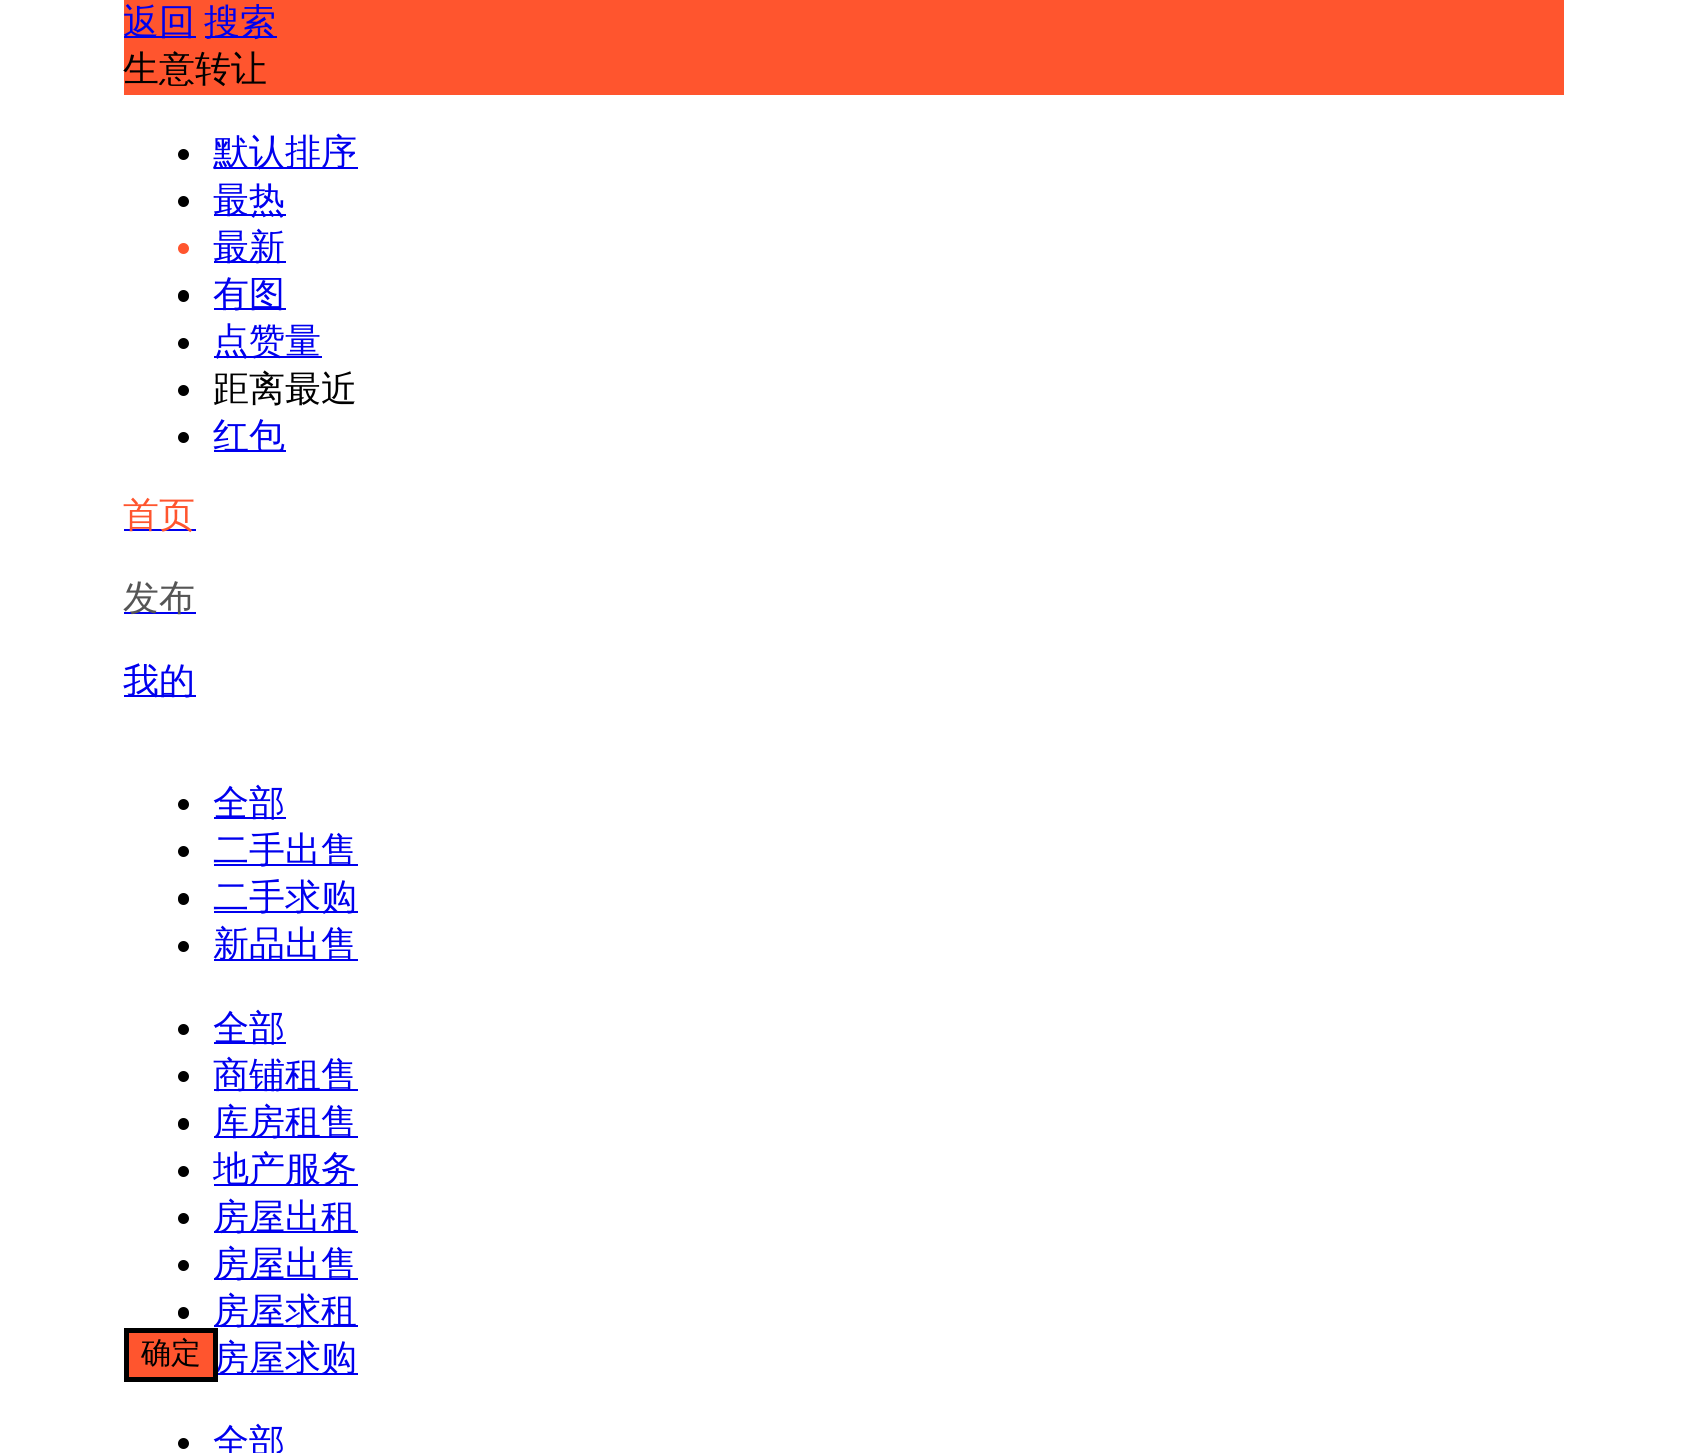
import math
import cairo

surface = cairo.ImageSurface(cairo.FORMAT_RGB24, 1684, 1453)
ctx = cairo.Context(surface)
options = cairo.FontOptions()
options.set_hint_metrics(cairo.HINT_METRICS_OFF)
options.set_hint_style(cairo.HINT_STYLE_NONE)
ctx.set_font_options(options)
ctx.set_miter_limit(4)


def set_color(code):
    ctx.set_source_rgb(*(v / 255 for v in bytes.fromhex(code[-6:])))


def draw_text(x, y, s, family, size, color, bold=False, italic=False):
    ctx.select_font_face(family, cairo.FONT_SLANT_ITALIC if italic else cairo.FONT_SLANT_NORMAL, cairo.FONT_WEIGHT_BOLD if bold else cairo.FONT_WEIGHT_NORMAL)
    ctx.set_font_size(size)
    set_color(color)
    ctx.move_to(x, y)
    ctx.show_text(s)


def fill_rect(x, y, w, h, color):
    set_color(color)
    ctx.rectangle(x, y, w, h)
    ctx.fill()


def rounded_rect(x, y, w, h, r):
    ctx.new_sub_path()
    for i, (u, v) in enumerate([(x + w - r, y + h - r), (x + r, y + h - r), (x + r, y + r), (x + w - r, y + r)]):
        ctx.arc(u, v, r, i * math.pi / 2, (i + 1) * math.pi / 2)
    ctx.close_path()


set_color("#ffffff")
ctx.paint()
fill_rect(124, 0, 1440, 95, "#ff552e")
fill_rect(124, 36, 72, 2, "#0000ee")
draw_text(123, 34, "返回", "WenQuanYi Zen Hei Medium", 36, "#0000ee")
fill_rect(205, 36, 72, 2, "#0000ee")
draw_text(204, 34, "搜索", "WenQuanYi Zen Hei Medium", 36, "#0000ee")
draw_text(123, 81, "生意转让", "WenQuanYi Zen Hei Medium", 36, "#000000")
ctx.new_path()
ctx.arc(183.5, 154.5, 5.5, 0, 2 * math.pi)
ctx.fill()
fill_rect(214, 167, 144, 2, "#0000ee")
draw_text(213, 164, "默认排序", "WenQuanYi Zen Hei Medium", 36, "#0000ee")
set_color("#000000")
ctx.new_path()
ctx.arc(183.5, 201.5, 5.5, 0, 2 * math.pi)
ctx.fill()
fill_rect(214, 214, 72, 2, "#0000ee")
draw_text(213, 212, "最热", "WenQuanYi Zen Hei Medium", 36, "#0000ee")
set_color("#ff552e")
ctx.new_path()
ctx.arc(183.5, 248.5, 5.5, 0, 2 * math.pi)
ctx.fill()
fill_rect(214, 261, 72, 2, "#0000ee")
draw_text(213, 259, "最新", "WenQuanYi Zen Hei Medium", 36, "#0000ee")
set_color("#000000")
rounded_rect(178, 290, 11, 12, 5.5)
ctx.fill()
fill_rect(214, 308, 72, 2, "#0000ee")
draw_text(213, 306, "有图", "WenQuanYi Zen Hei Medium", 36, "#0000ee")
set_color("#000000")
ctx.new_path()
ctx.arc(183.5, 343.5, 5.5, 0, 2 * math.pi)
ctx.fill()
fill_rect(214, 356, 108, 2, "#0000ee")
draw_text(213, 353, "点赞量", "WenQuanYi Zen Hei Medium", 36, "#0000ee")
set_color("#000000")
ctx.new_path()
ctx.arc(183.5, 390.5, 5.5, 0, 2 * math.pi)
ctx.fill()
draw_text(213, 401, "距离最近", "WenQuanYi Zen Hei Medium", 36, "#000000")
ctx.new_path()
ctx.arc(183.5, 437.5, 5.5, 0, 2 * math.pi)
ctx.fill()
fill_rect(214, 450, 72, 2, "#0000ee")
draw_text(213, 448, "红包", "WenQuanYi Zen Hei Medium", 36, "#0000ee")
set_color("#000000")
ctx.new_path()
ctx.arc(183.5, 804.5, 5.5, 0, 2 * math.pi)
ctx.fill()
fill_rect(214, 817, 72, 2, "#0000ee")
draw_text(213, 815, "全部", "WenQuanYi Zen Hei Medium", 36, "#0000ee")
set_color("#000000")
ctx.new_path()
ctx.arc(183.5, 851.5, 5.5, 0, 2 * math.pi)
ctx.fill()
fill_rect(214, 864, 144, 2, "#0000ee")
draw_text(213, 862, "二手出售", "WenQuanYi Zen Hei Medium", 36, "#0000ee")
set_color("#000000")
rounded_rect(178, 893, 11, 12, 5.5)
ctx.fill()
fill_rect(214, 911, 144, 2, "#0000ee")
draw_text(213, 909, "二手求购", "WenQuanYi Zen Hei Medium", 36, "#0000ee")
set_color("#000000")
ctx.new_path()
ctx.arc(183.5, 946.5, 5.5, 0, 2 * math.pi)
ctx.fill()
fill_rect(214, 959, 144, 2, "#0000ee")
draw_text(213, 956, "新品出售", "WenQuanYi Zen Hei Medium", 36, "#0000ee")
set_color("#000000")
ctx.new_path()
ctx.arc(183.5, 1029.5, 5.5, 0, 2 * math.pi)
ctx.fill()
fill_rect(214, 1042, 72, 2, "#0000ee")
draw_text(213, 1040, "全部", "WenQuanYi Zen Hei Medium", 36, "#0000ee")
set_color("#000000")
ctx.new_path()
ctx.arc(183.5, 1076.5, 5.5, 0, 2 * math.pi)
ctx.fill()
fill_rect(214, 1089, 144, 2, "#0000ee")
draw_text(213, 1087, "商铺租售", "WenQuanYi Zen Hei Medium", 36, "#0000ee")
set_color("#000000")
rounded_rect(178, 1118, 11, 12, 5.5)
ctx.fill()
fill_rect(214, 1136, 144, 2, "#0000ee")
draw_text(213, 1134, "库房租售", "WenQuanYi Zen Hei Medium", 36, "#0000ee")
set_color("#000000")
ctx.new_path()
ctx.arc(183.5, 1171.5, 5.5, 0, 2 * math.pi)
ctx.fill()
fill_rect(214, 1184, 144, 2, "#0000ee")
draw_text(213, 1181, "地产服务", "WenQuanYi Zen Hei Medium", 36, "#0000ee")
set_color("#000000")
ctx.new_path()
ctx.arc(183.5, 1218.5, 5.5, 0, 2 * math.pi)
ctx.fill()
fill_rect(214, 1231, 144, 2, "#0000ee")
draw_text(213, 1229, "房屋出租", "WenQuanYi Zen Hei Medium", 36, "#0000ee")
set_color("#000000")
ctx.new_path()
ctx.arc(183.5, 1265.5, 5.5, 0, 2 * math.pi)
ctx.fill()
fill_rect(214, 1278, 144, 2, "#0000ee")
draw_text(213, 1276, "房屋出售", "WenQuanYi Zen Hei Medium", 36, "#0000ee")
set_color("#000000")
rounded_rect(178, 1307, 11, 12, 5.5)
ctx.fill()
fill_rect(214, 1325, 144, 2, "#0000ee")
draw_text(213, 1323, "房屋求租", "WenQuanYi Zen Hei Medium", 36, "#0000ee")
fill_rect(214, 1373, 144, 2, "#0000ee")
draw_text(213, 1370, "房屋求购", "WenQuanYi Zen Hei Medium", 36, "#0000ee")
set_color("#000000")
ctx.new_path()
ctx.arc(183.5, 1443.5, 5.5, 0, 2 * math.pi)
ctx.fill()
draw_text(213, 1454, "全部", "WenQuanYi Zen Hei Medium", 36, "#0000ee")
fill_rect(124, 529, 72, 2, "#0000ee")
draw_text(123, 527, "首页", "WenQuanYi Zen Hei Medium", 36, "#ff552e")
fill_rect(124, 612, 72, 2, "#0000ee")
draw_text(123, 610, "发布", "WenQuanYi Zen Hei Medium", 36, "#555555")
fill_rect(124, 695, 72, 2, "#0000ee")
draw_text(123, 693, "我的", "WenQuanYi Zen Hei Medium", 36, "#0000ee")
set_color("#ff552e")
ctx.rectangle(126.5, 1330.5, 89, 49)
ctx.fill_preserve()
set_color("#000000")
ctx.set_line_width(5)
ctx.stroke()
draw_text(141, 1363, "确定", "WenQuanYi Zen Hei Medium", 30, "#000000")
surface.write_to_png("output.png")
